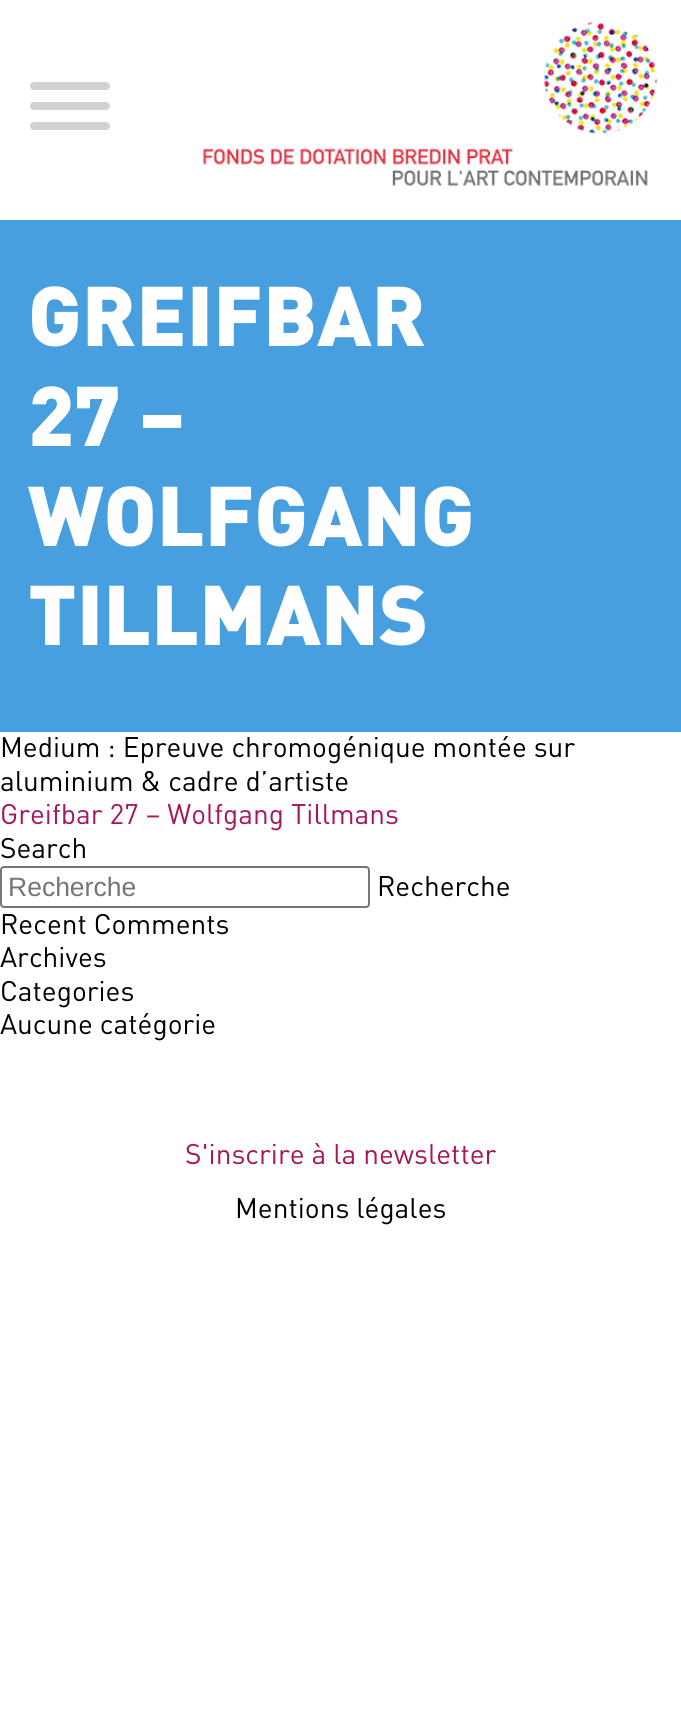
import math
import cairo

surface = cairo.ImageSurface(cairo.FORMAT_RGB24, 681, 1733)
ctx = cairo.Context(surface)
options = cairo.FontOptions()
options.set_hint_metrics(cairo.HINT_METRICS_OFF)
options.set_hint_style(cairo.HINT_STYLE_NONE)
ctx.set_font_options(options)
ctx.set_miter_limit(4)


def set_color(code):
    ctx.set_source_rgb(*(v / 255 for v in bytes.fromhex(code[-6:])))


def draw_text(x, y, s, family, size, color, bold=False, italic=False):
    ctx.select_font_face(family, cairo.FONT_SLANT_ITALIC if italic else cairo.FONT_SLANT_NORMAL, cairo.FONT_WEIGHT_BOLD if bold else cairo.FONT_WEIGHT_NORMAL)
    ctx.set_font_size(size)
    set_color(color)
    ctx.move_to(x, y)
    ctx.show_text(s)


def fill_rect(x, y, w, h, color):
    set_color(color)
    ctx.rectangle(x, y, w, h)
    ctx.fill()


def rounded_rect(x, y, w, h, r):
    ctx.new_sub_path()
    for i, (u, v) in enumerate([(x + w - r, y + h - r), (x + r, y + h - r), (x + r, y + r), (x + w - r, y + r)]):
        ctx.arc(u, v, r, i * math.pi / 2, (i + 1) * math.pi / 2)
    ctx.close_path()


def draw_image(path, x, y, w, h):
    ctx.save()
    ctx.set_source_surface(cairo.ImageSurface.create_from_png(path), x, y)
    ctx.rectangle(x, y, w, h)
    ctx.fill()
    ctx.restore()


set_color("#ffffff")
ctx.paint()
set_color("#d1d1d1")
rounded_rect(30, 102, 80, 8, 4)
ctx.fill()
rounded_rect(30, 82, 80, 8, 4)
ctx.fill()
rounded_rect(30, 122, 80, 8, 4)
ctx.fill()
draw_image("assets/img1.png", 203, 22, 455, 164)
fill_rect(0, 220, 681, 512, "#489fdf")
draw_text(28, 346, "GREIFBAR", "DIN Black", 83.25, "#ffffff")
draw_text(28, 446, "27 –", "DIN Black", 83.25, "#ffffff")
draw_text(28, 546, "WOLFGANG", "DIN Black", 83.25, "#ffffff")
draw_text(28, 645, "TILLMANS", "DIN Black", 83.25, "#ffffff")
draw_text(0, 757, "Medium : Epreuve chromogénique montée sur", "DIN", 28, "#000000")
draw_text(0, 791, "aluminium & cadre d’artiste", "DIN", 28, "#000000")
draw_text(0, 824, "Greifbar 27 – Wolfgang Tillmans", "DIN", 28, "#a7155a")
draw_text(0, 858, "Search", "DIN", 28, "#000000")
rounded_rect(1, 867, 368, 40, 3)
set_color("#767676")
ctx.stroke()
draw_text(8, 896, "Recherche", "Liberation Sans", 26.5, "#757575")
draw_text(377, 896, "Recherche", "DIN", 28, "#000000")
draw_text(0, 934, "Recent Comments", "DIN", 28, "#000000")
draw_text(0, 967, "Archives", "DIN", 28, "#000000")
draw_text(0, 1001, "Categories", "DIN", 28, "#000000")
draw_text(0, 1034, "Aucune catégorie", "DIN", 28, "#000000")
draw_text(185, 1164, "S'inscrire à la newsletter", "DIN", 28, "#a7155a")
draw_text(235, 1218, "Mentions légales", "DIN", 28, "#000000")
surface.write_to_png("output.png")
